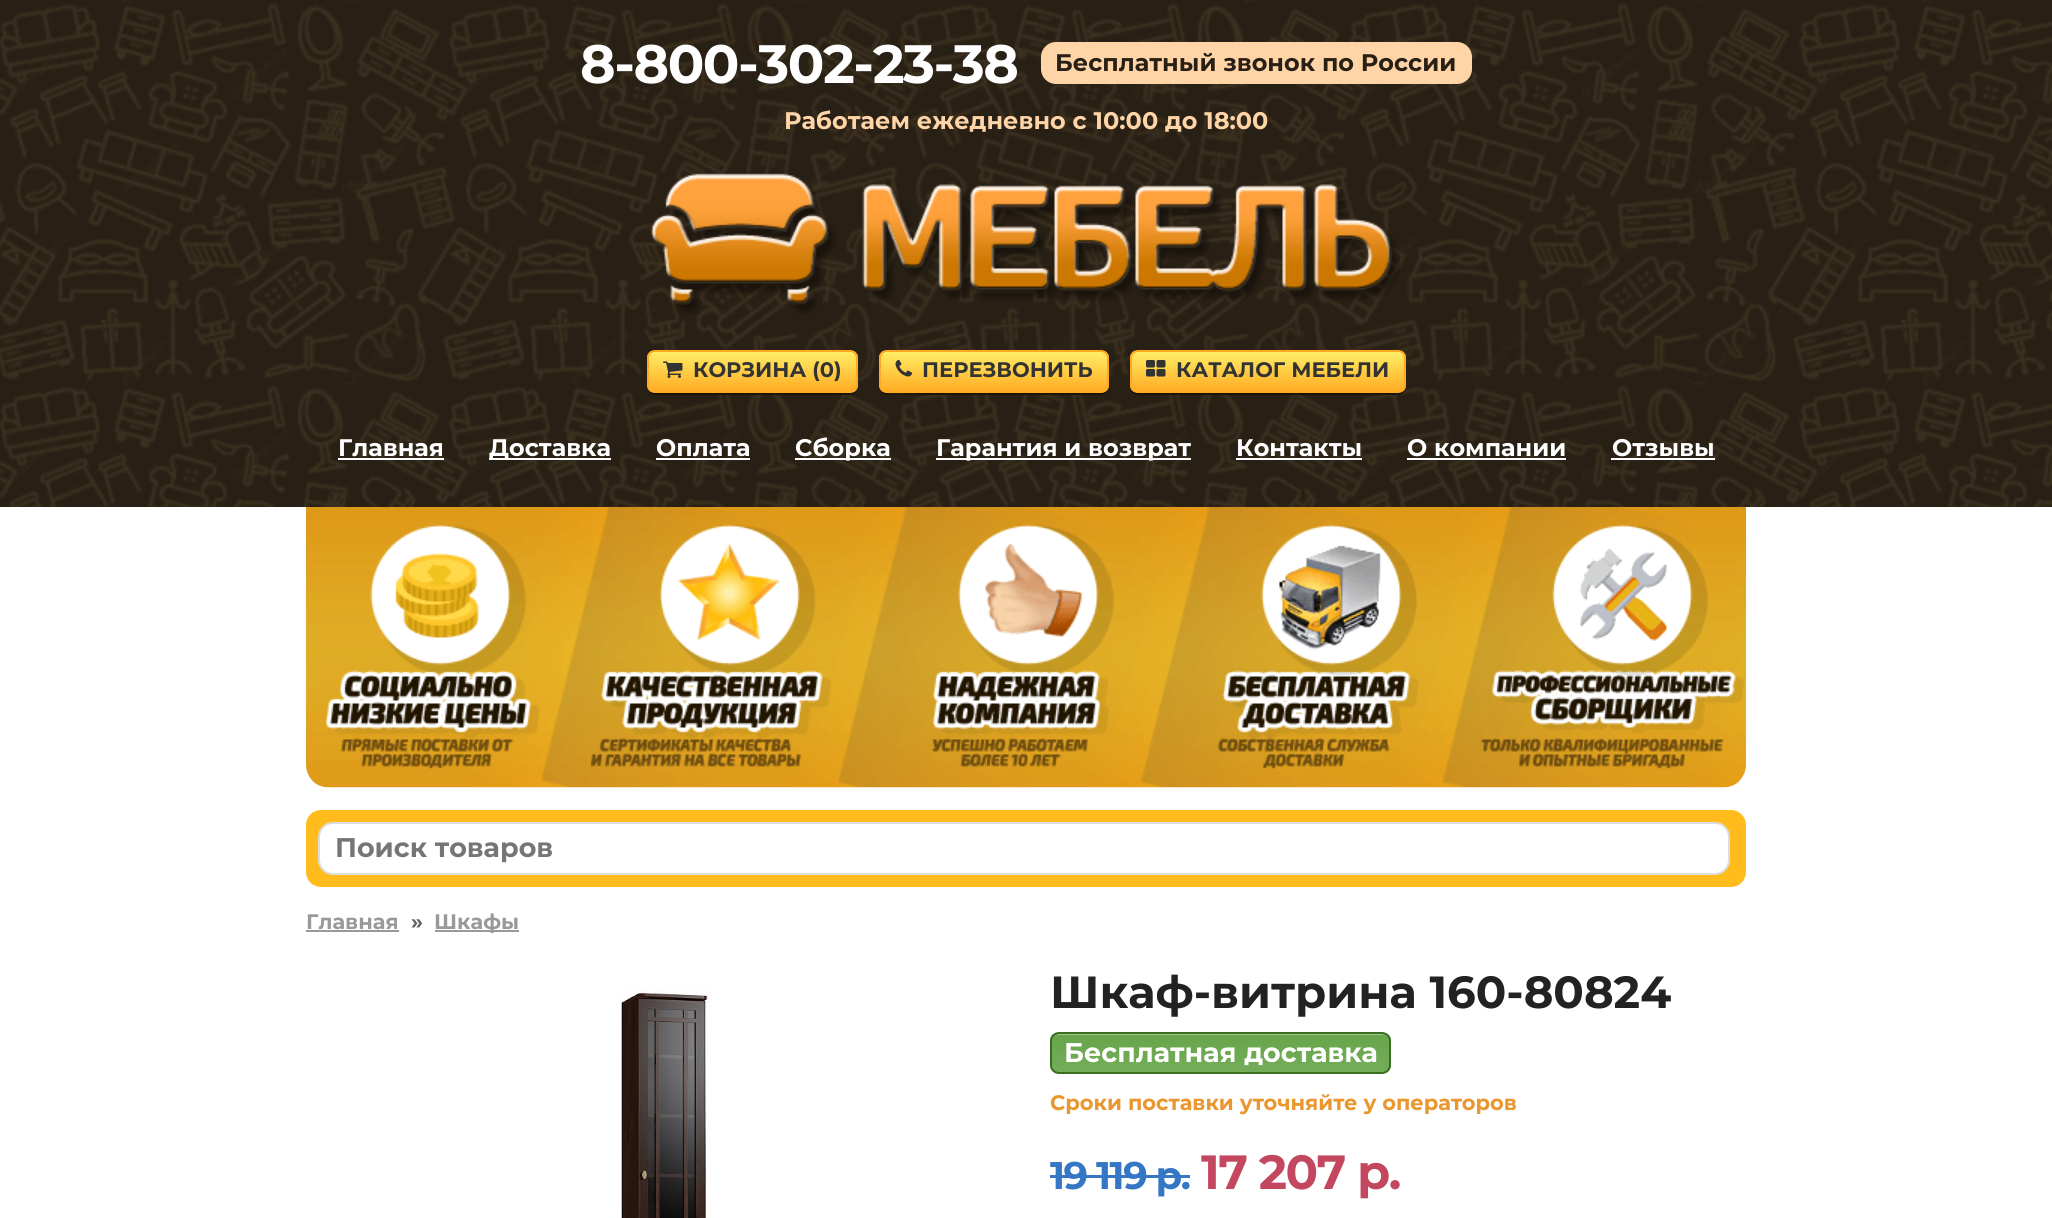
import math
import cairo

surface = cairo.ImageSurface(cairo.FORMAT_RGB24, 2052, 1218)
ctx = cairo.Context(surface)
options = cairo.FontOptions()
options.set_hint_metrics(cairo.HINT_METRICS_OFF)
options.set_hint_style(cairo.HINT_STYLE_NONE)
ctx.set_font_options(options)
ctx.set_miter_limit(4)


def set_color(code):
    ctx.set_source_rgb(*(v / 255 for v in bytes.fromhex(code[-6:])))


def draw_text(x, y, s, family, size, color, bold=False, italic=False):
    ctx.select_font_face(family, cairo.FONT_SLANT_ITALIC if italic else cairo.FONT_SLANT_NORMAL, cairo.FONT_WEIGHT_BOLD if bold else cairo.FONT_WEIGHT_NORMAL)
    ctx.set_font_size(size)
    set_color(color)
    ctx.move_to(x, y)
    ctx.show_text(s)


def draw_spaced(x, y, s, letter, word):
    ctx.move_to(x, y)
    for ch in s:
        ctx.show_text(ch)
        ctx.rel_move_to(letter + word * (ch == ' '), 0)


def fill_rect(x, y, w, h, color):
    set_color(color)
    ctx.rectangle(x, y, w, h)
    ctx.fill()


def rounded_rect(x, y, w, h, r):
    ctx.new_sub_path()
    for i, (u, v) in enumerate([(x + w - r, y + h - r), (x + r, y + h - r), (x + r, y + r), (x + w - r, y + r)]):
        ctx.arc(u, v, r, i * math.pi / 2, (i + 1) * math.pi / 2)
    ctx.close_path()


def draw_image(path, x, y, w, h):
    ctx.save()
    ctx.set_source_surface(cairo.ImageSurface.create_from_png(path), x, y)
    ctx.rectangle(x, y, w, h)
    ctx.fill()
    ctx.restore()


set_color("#ffffff")
ctx.paint()
draw_image("assets/img1.png", 0, 0, 2052, 507)
ctx.select_font_face("Montserrat", cairo.FONT_SLANT_NORMAL, cairo.FONT_WEIGHT_BOLD)
ctx.set_font_size(54)
set_color("#ffffff")
draw_spaced(580, 83, "8-800-302-23-38", -1.5, 0)
set_color("#ffd5a8")
rounded_rect(1041, 42, 431, 42, 15)
ctx.fill()
draw_text(1055, 71, "Бесплатный звонок по России", "Montserrat", 24, "#292015", bold=True)
draw_text(784, 129, "Работаем ежедневно с 10:00 до 18:00", "Montserrat", 24, "#ffd5a8", bold=True)
draw_image("assets/img2.png", 650, 173, 750, 141)
set_color("#1d1408")
ctx.new_path()
ctx.move_to(647, 389)
ctx.curve_to(648, 392, 651, 395, 655, 395)
ctx.line_to(850, 395)
ctx.curve_to(854, 395, 858, 391, 858, 387)
ctx.line_to(858, 386)
ctx.curve_to(858, 390, 855, 393, 850, 393)
ctx.line_to(654, 393)
ctx.curve_to(651, 393, 648, 391, 647, 389)
ctx.close_path()
ctx.fill()
ctx.save()
rounded_rect(647, 350, 211, 43, 8)
ctx.clip()
gradient = cairo.LinearGradient(752, 351, 752, 392)
gradient.add_color_stop_rgba(0.05, 1, 0.925, 0.392, 1)
gradient.add_color_stop_rgba(1, 1, 0.671, 0.137, 1)
ctx.set_source(gradient)
ctx.rectangle(647, 351, 211, 41)
ctx.fill()
ctx.restore()
rounded_rect(648, 351, 209, 41, 7)
set_color("#ffaa22")
ctx.stroke()
draw_image("assets/img3.png", 663, 361, 20, 17)
draw_text(693, 377, "КОРЗИНА (0)", "Montserrat", 21, "#333333", bold=True)
set_color("#1d1408")
ctx.new_path()
ctx.move_to(879, 386)
ctx.line_to(879, 387)
ctx.curve_to(879, 391, 883, 395, 887, 395)
ctx.line_to(1101, 395)
ctx.curve_to(1105, 395, 1109, 391, 1109, 387)
ctx.line_to(1109, 359)
ctx.line_to(1108, 356)
ctx.line_to(1108, 376)
ctx.curve_to(1108, 382, 1110, 393, 1101, 393)
ctx.line_to(922, 393)
ctx.curve_to(907, 393, 879, 399, 879, 386)
ctx.close_path()
ctx.fill()
ctx.save()
rounded_rect(879, 350, 230, 43, 8)
ctx.clip()
gradient = cairo.LinearGradient(994, 351, 994, 392)
gradient.add_color_stop_rgba(0.05, 1, 0.925, 0.392, 1)
gradient.add_color_stop_rgba(1, 1, 0.671, 0.137, 1)
ctx.set_source(gradient)
ctx.rectangle(879, 351, 230, 41)
ctx.fill()
ctx.restore()
rounded_rect(880, 351, 228, 41, 7)
set_color("#ffaa22")
ctx.stroke()
draw_image("assets/img4.png", 895, 360, 17, 17)
draw_text(922, 377, "ПЕРЕЗВОНИТЬ", "Montserrat", 21, "#333333", bold=True)
set_color("#1d1408")
ctx.new_path()
ctx.move_to(1130, 389)
ctx.curve_to(1131, 392, 1134, 395, 1138, 395)
ctx.line_to(1398, 395)
ctx.curve_to(1402, 395, 1406, 391, 1406, 387)
ctx.line_to(1406, 359)
ctx.line_to(1405, 356)
ctx.line_to(1406, 386)
ctx.curve_to(1406, 390, 1402, 393, 1398, 393)
ctx.line_to(1137, 393)
ctx.curve_to(1134, 393, 1131, 391, 1130, 389)
ctx.close_path()
ctx.fill()
ctx.save()
rounded_rect(1130, 350, 276, 43, 8)
ctx.clip()
gradient = cairo.LinearGradient(1268, 351, 1268, 392)
gradient.add_color_stop_rgba(0.05, 1, 0.925, 0.392, 1)
gradient.add_color_stop_rgba(1, 1, 0.671, 0.137, 1)
ctx.set_source(gradient)
ctx.rectangle(1130, 351, 276, 41)
ctx.fill()
ctx.restore()
rounded_rect(1131, 351, 274, 41, 7)
set_color("#ffaa22")
ctx.stroke()
draw_image("assets/img5.png", 1146, 360, 20, 17)
draw_text(1176, 377, "КАТАЛОГ МЕБЕЛИ", "Montserrat", 21, "#333333", bold=True)
draw_text(338, 456, "Главная", "Montserrat", 24, "#ffffff", bold=True)
fill_rect(338, 458, 106, 2, "#ffffff")
fill_rect(489, 458, 122, 2, "#ffffff")
draw_text(489, 456, "Доставка", "Montserrat", 24, "#ffffff", bold=True)
draw_text(656, 456, "Оплата", "Montserrat", 24, "#ffffff", bold=True)
fill_rect(656, 458, 94, 2, "#ffffff")
fill_rect(795, 458, 96, 2, "#ffffff")
draw_text(795, 456, "Сборка", "Montserrat", 24, "#ffffff", bold=True)
fill_rect(936, 458, 255, 2, "#ffffff")
draw_text(936, 456, "Гарантия и возврат", "Montserrat", 24, "#ffffff", bold=True)
draw_text(1236, 456, "Контакты", "Montserrat", 24, "#ffffff", bold=True)
fill_rect(1236, 458, 126, 2, "#ffffff")
draw_text(1407, 456, "О компании", "Montserrat", 24, "#ffffff", bold=True)
fill_rect(1407, 458, 159, 2, "#ffffff")
draw_text(1612, 456, "Отзывы", "Montserrat", 24, "#ffffff", bold=True)
fill_rect(1611, 458, 104, 2, "#ffffff")
draw_image("assets/img6.png", 306, 507, 1440, 281)
set_color("#ffbc1c")
rounded_rect(306, 810, 1440, 77, 15)
ctx.fill()
set_color("#ffffff")
rounded_rect(319, 823, 1410, 51, 14)
ctx.fill_preserve()
set_color("#dddddd")
ctx.stroke()
draw_text(335, 857, "Поиск товаров", "Montserrat", 27, "#757575", bold=True)
draw_text(306, 929, "Главная", "Montserrat", 21, "#999999", bold=True)
fill_rect(306, 930, 93, 2, "#999999")
draw_text(411, 929, "»", "Montserrat", 21, "#666666", bold=True)
fill_rect(435, 930, 84, 2, "#999999")
draw_text(434, 929, "Шкафы", "Montserrat", 21, "#999999", bold=True)
draw_image("assets/img7.png", 620, 989, 92, 229)
draw_text(1050, 1008, "Шкаф-витрина 160-80824", "Montserrat", 45, "#222222", bold=True)
ctx.save()
rounded_rect(1050, 1032, 341, 42, 9)
ctx.clip()
gradient = cairo.LinearGradient(1220, 1034, 1220, 1073)
gradient.add_color_stop_rgba(0.05, 0.408, 0.647, 0.294, 1)
gradient.add_color_stop_rgba(1, 0.455, 0.678, 0.353, 1)
ctx.set_source(gradient)
ctx.rectangle(1050, 1034, 341, 39)
ctx.fill()
ctx.restore()
set_color("#9acc85")
ctx.new_path()
ctx.move_to(1059, 1035)
ctx.line_to(1382, 1035)
ctx.curve_to(1386, 1035, 1389, 1038, 1389, 1042)
ctx.curve_to(1389, 1038, 1385, 1034, 1381, 1034)
ctx.line_to(1060, 1034)
ctx.curve_to(1056, 1034, 1052, 1038, 1052, 1042)
ctx.curve_to(1052, 1038, 1055, 1035, 1059, 1035)
ctx.close_path()
ctx.fill()
rounded_rect(1051, 1033, 339, 40, 8)
set_color("#3b6e22")
ctx.stroke()
draw_text(1064, 1062, "Бесплатная доставка", "Montserrat", 27, "#ffffff", bold=True)
draw_image("assets/img8.png", 1050, 1094, 466, 21)
ctx.set_font_size(38.5)
set_color("#3576c5")
draw_spaced(1050, 1189, "19 119 р.", -1.5, 0)
fill_rect(1050, 1175, 140, 3, "#3576c5")
ctx.set_font_size(48)
set_color("#c3485f")
draw_spaced(1201, 1189, "17 207 р.", -1.5, 0)
surface.write_to_png("output.png")
